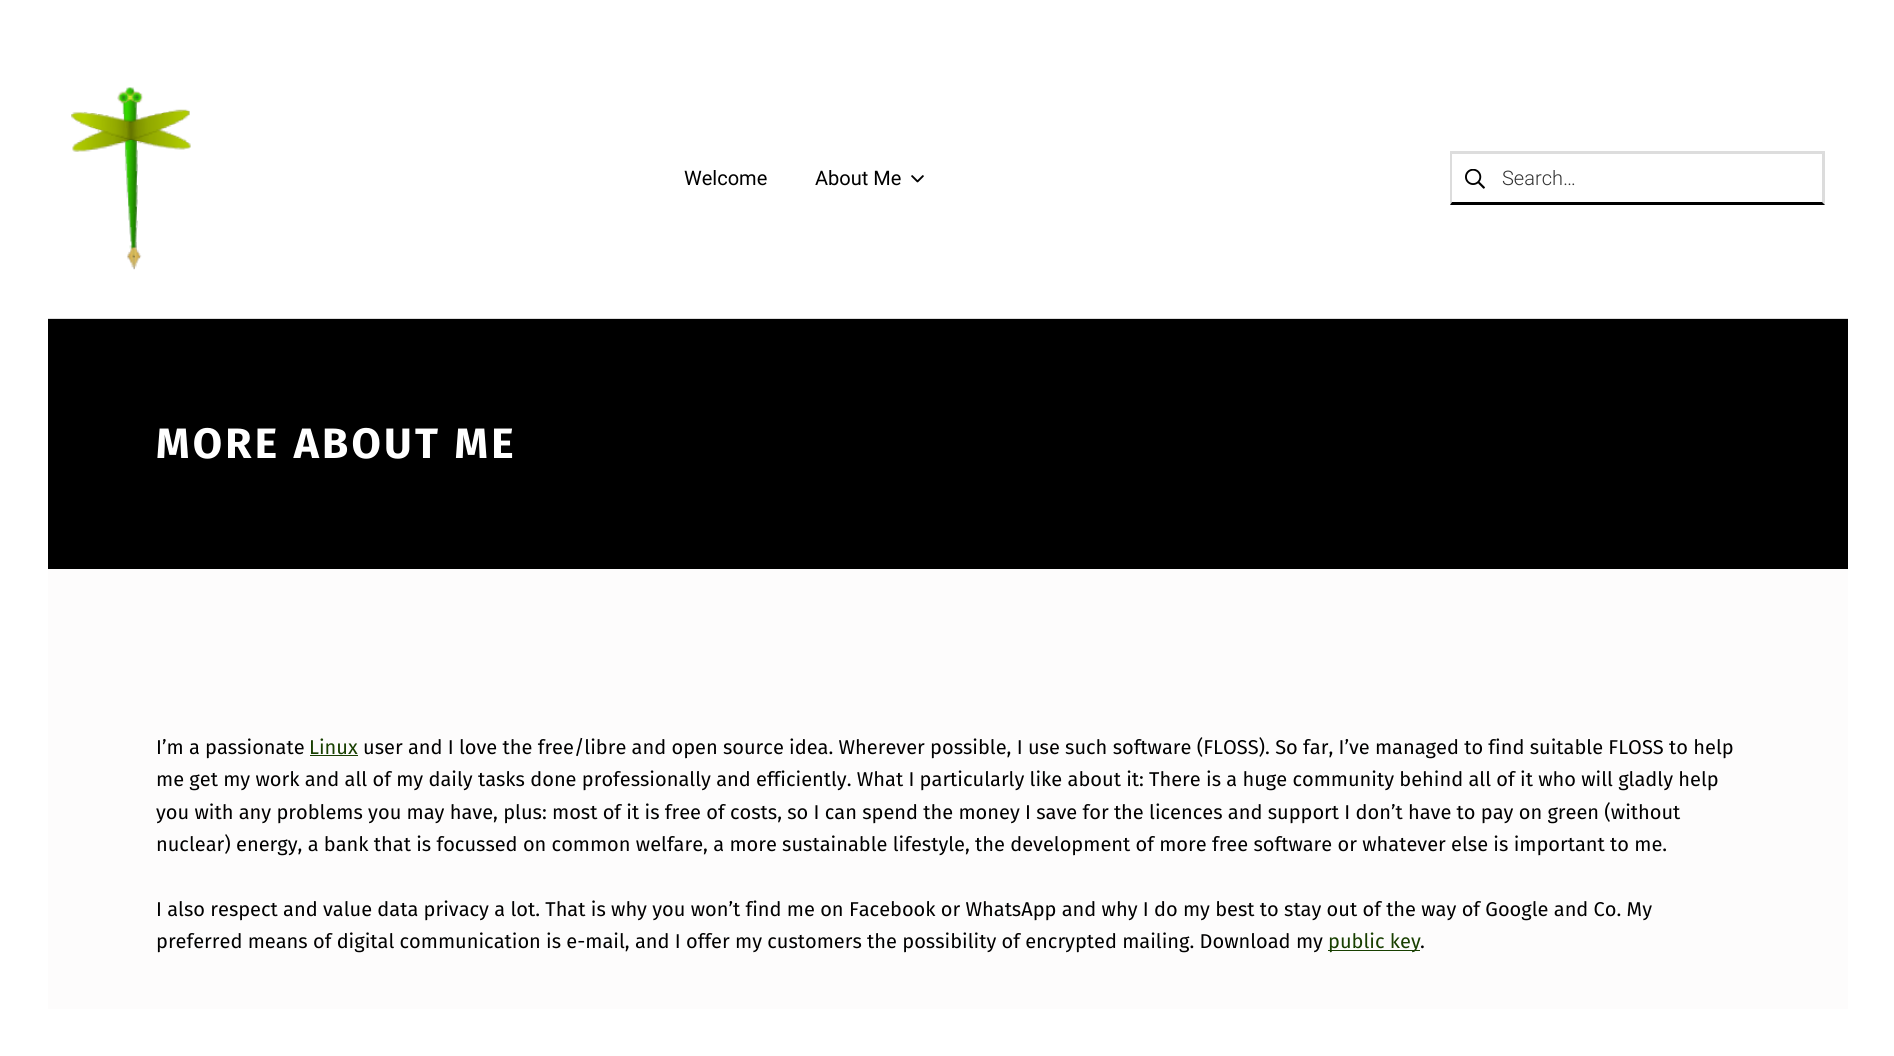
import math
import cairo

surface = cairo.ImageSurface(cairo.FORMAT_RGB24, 1894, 1056)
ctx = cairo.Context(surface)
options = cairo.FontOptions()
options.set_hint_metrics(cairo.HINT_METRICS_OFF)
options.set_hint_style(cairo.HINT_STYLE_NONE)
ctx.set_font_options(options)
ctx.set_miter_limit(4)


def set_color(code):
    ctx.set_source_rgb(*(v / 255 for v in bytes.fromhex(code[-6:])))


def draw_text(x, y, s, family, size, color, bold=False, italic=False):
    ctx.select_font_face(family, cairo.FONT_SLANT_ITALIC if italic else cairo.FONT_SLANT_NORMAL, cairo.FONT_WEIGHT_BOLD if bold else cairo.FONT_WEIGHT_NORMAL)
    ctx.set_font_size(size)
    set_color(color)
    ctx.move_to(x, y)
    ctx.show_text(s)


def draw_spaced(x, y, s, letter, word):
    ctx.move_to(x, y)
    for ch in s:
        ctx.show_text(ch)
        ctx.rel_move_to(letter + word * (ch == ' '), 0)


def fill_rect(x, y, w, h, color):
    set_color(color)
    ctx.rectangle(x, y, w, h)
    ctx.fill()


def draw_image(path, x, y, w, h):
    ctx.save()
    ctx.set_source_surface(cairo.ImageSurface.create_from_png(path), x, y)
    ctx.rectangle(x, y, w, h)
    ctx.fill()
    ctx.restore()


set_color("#ffffff")
ctx.paint()
fill_rect(48, 318, 1800, 1, "#dddddd")
draw_image("assets/img1.png", 71, 87, 120, 183)
draw_text(684, 185, "Welcome", "Roboto", 20, "#000000")
draw_text(815, 185, "About Me", "Roboto", 20, "#000000")
draw_image("assets/img2.png", 911, 175, 13, 8)
draw_image("assets/img3.png", 1465, 169, 20, 20)
set_color("#dddddd")
ctx.new_path()
ctx.move_to(1450, 151)
ctx.line_to(1825, 151)
ctx.line_to(1822, 154)
ctx.line_to(1452, 154)
ctx.close_path()
ctx.fill()
ctx.set_source_rgba(0.329, 0.325, 0.325, 0.2)
ctx.new_path()
ctx.move_to(1825, 151)
ctx.line_to(1825, 205)
ctx.line_to(1822, 202)
ctx.line_to(1822, 154)
ctx.close_path()
ctx.fill()
set_color("#000000")
ctx.new_path()
ctx.move_to(1825, 205)
ctx.line_to(1450, 205)
ctx.line_to(1452, 202)
ctx.line_to(1822, 202)
ctx.close_path()
ctx.fill()
ctx.set_source_rgba(0.329, 0.325, 0.325, 0.2)
ctx.new_path()
ctx.move_to(1450, 205)
ctx.line_to(1450, 151)
ctx.line_to(1452, 154)
ctx.line_to(1452, 202)
ctx.close_path()
ctx.fill()
draw_text(1502, 185, "Search…", "Roboto Light", 20, "#333333")
fill_rect(48, 569, 1800, 440, "#fdfcfc")
fill_rect(48, 319, 1800, 250, "#000000")
ctx.select_font_face("Fira Sans", cairo.FONT_SLANT_NORMAL, cairo.FONT_WEIGHT_BOLD)
ctx.set_font_size(42.5)
set_color("#ffffff")
draw_spaced(156, 458, "MORE ABOUT ME", 3.25, 0)
draw_text(156, 754, "I’m a passionate", "Fira Sans", 20, "#000000")
draw_text(309, 754, "Linux", "Fira Sans", 20, "#183f00")
fill_rect(310, 755, 48, 1, "#183f00")
draw_text(363, 754, "user and I love the free/libre and open source idea. Wherever possible, I use such software (FLOSS). So far, I’ve managed to find suitable FLOSS to help", "Fira Sans", 20, "#000000")
draw_text(156, 786, "me get my work and all of my daily tasks done professionally and efficiently. What I particularly like about it: There is a huge community behind all of it who will gladly help", "Fira Sans", 20, "#000000")
draw_text(156, 819, "you with any problems you may have, plus: most of it is free of costs, so I can spend the money I save for the licences and support I don’t have to pay on green (without", "Fira Sans", 20, "#000000")
draw_text(156, 851, "nuclear) energy, a bank that is focussed on common welfare, a more sustainable lifestyle, the development of more free software or whatever else is important to me.", "Fira Sans", 20, "#000000")
draw_text(156, 916, "I also respect and value data privacy a lot. That is why you won’t find me on Facebook or WhatsApp and why I do my best to stay out of the way of Google and Co. My", "Fira Sans", 20, "#000000")
draw_text(156, 948, "preferred means of digital communication is e-mail, and I offer my customers the possibility of encrypted mailing. Download my", "Fira Sans", 20, "#000000")
fill_rect(1328, 950, 92, 1, "#183f00")
draw_text(1328, 948, "public key", "Fira Sans", 20, "#183f00")
draw_text(1420, 948, ".", "Fira Sans", 20, "#000000")
surface.write_to_png("output.png")
